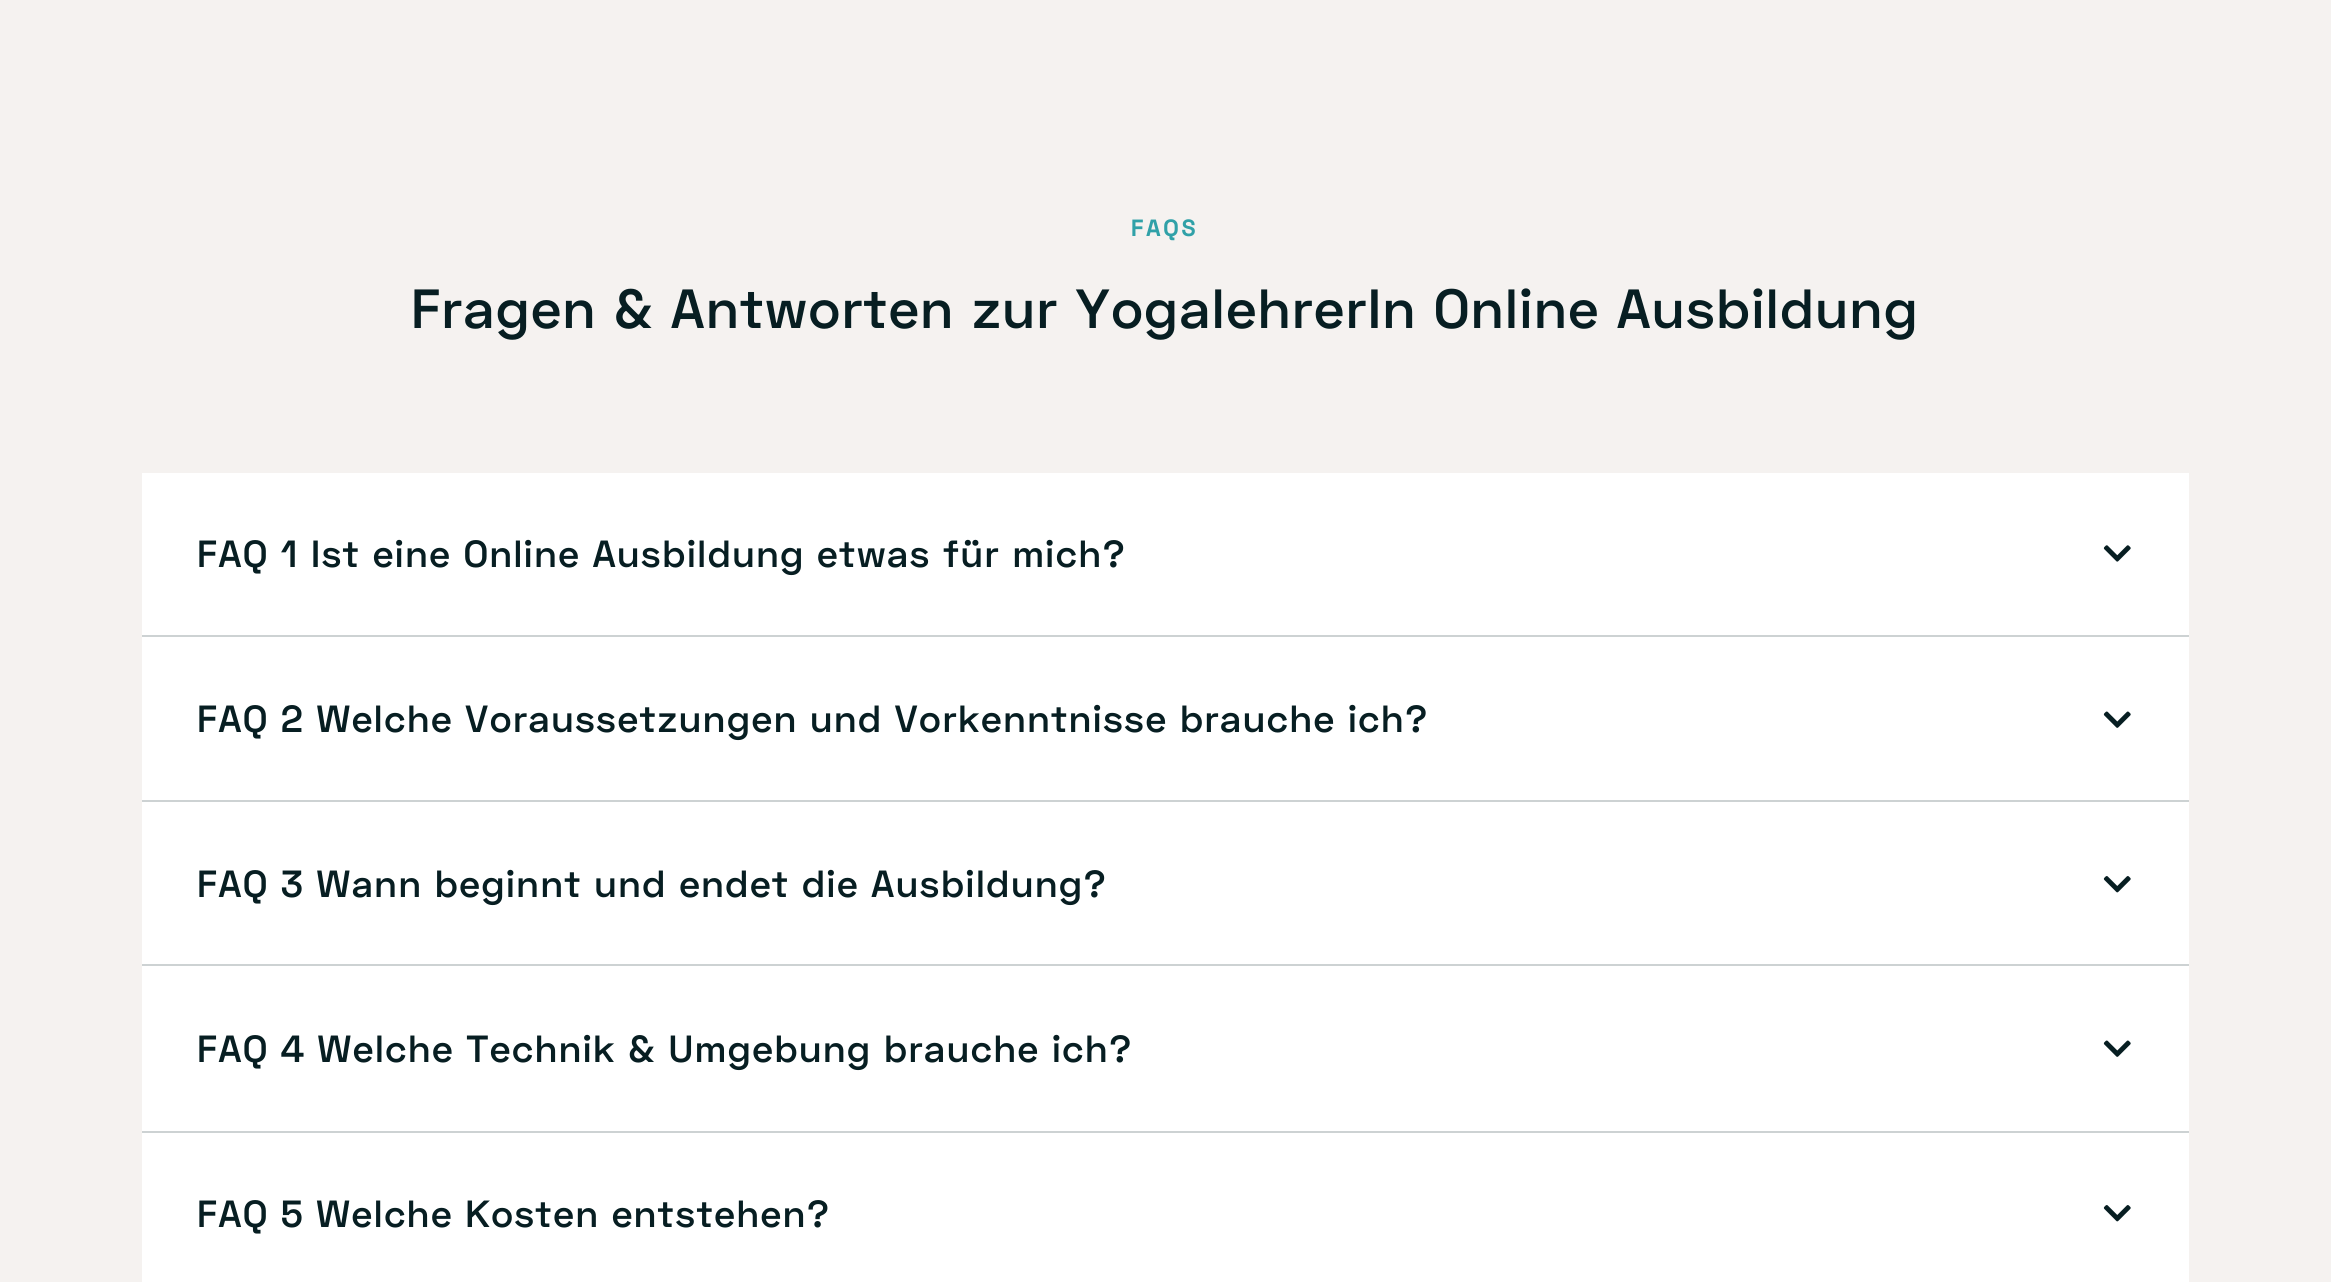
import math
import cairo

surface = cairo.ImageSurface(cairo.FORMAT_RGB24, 2331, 1282)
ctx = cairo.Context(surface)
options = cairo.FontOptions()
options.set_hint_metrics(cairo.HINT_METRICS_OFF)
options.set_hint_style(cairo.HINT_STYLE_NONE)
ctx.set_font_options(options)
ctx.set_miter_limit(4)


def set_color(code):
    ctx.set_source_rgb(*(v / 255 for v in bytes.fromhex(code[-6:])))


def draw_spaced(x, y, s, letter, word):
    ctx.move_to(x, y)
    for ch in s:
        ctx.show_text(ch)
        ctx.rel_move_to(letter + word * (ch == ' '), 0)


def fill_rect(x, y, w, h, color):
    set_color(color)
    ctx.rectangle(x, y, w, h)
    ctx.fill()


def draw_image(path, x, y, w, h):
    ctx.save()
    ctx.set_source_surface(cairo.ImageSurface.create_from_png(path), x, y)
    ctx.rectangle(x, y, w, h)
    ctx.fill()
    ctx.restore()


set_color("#f5f2f0")
ctx.paint()
ctx.select_font_face("Space Grotesk", cairo.FONT_SLANT_NORMAL, cairo.FONT_WEIGHT_BOLD)
ctx.set_font_size(23.5)
set_color("#30a1a8")
draw_spaced(1131, 236, "FAQS", 3, 0)
ctx.select_font_face("Space Grotesk SemiBold")
ctx.set_font_size(55.1)
set_color("#071e22")
draw_spaced(411, 328, "Fragen & Antworten zur YogalehrerIn Online Ausbildung", 1.57, 0)
fill_rect(142, 473, 2047, 162, "#ffffff")
ctx.set_font_size(37.8)
set_color("#071e22")
draw_spaced(197, 567, "FAQ 1 Ist eine Online Ausbildung etwas für mich?", 1.57, 0)
draw_image("assets/img1.png", 2103, 545, 28, 17)
fill_rect(142, 637, 2047, 163, "#ffffff")
fill_rect(142, 635, 2047, 2, "#cdd2d3")
set_color("#071e22")
draw_spaced(197, 732, "FAQ 2 Welche Voraussetzungen und Vorkenntnisse brauche ich?", 1.57, 0)
draw_image("assets/img2.png", 2103, 711, 28, 17)
fill_rect(142, 802, 2047, 162, "#ffffff")
fill_rect(142, 800, 2047, 2, "#cdd2d3")
set_color("#071e22")
draw_spaced(197, 897, "FAQ 3 Wann beginnt und endet die Ausbildung?", 1.57, 0)
draw_image("assets/img3.png", 2103, 876, 28, 17)
fill_rect(142, 966, 2047, 165, "#ffffff")
fill_rect(142, 964, 2047, 2, "#cdd2d3")
set_color("#071e22")
draw_spaced(197, 1062, "FAQ 4 Welche Technik & Umgebung brauche ich?", 1.57, 0)
draw_image("assets/img2.png", 2103, 1040, 28, 17)
fill_rect(142, 1133, 2047, 149, "#ffffff")
fill_rect(142, 1131, 2047, 2, "#cdd2d3")
set_color("#071e22")
draw_spaced(197, 1227, "FAQ 5 Welche Kosten entstehen?", 1.57, 0)
draw_image("assets/img3.png", 2103, 1205, 28, 17)
surface.write_to_png("output.png")
